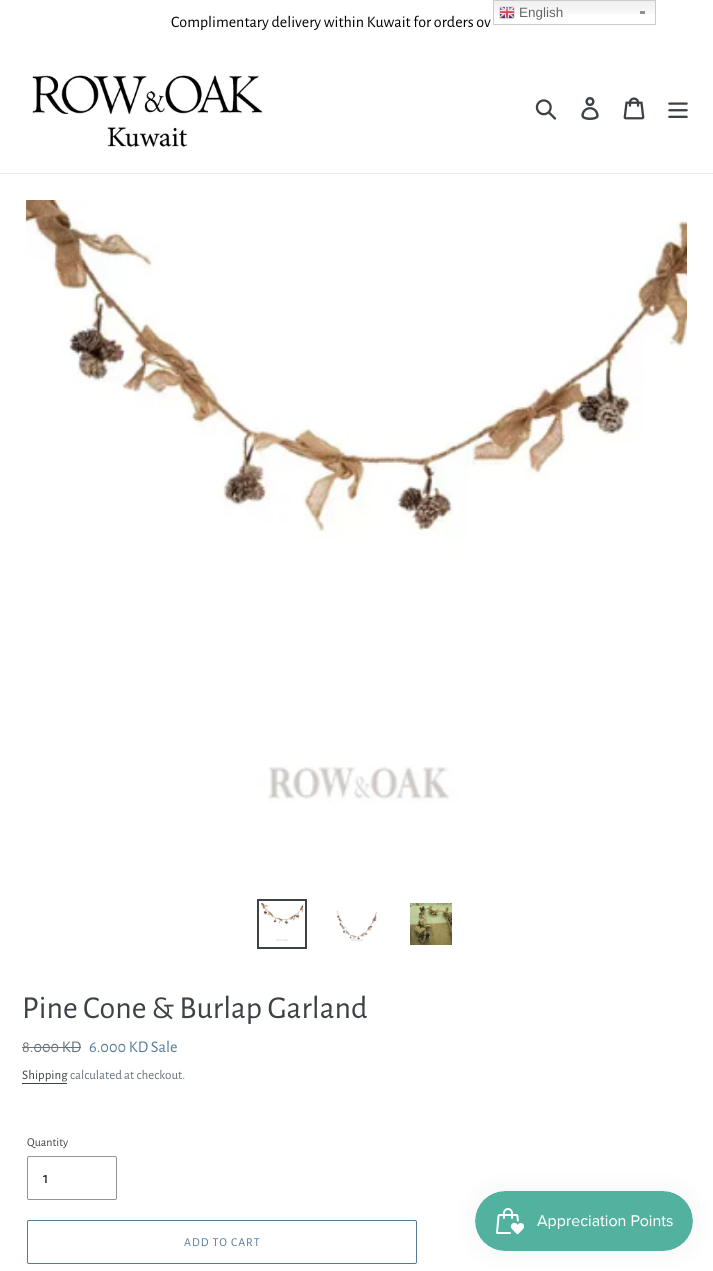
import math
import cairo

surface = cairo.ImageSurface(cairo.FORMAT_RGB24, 713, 1271)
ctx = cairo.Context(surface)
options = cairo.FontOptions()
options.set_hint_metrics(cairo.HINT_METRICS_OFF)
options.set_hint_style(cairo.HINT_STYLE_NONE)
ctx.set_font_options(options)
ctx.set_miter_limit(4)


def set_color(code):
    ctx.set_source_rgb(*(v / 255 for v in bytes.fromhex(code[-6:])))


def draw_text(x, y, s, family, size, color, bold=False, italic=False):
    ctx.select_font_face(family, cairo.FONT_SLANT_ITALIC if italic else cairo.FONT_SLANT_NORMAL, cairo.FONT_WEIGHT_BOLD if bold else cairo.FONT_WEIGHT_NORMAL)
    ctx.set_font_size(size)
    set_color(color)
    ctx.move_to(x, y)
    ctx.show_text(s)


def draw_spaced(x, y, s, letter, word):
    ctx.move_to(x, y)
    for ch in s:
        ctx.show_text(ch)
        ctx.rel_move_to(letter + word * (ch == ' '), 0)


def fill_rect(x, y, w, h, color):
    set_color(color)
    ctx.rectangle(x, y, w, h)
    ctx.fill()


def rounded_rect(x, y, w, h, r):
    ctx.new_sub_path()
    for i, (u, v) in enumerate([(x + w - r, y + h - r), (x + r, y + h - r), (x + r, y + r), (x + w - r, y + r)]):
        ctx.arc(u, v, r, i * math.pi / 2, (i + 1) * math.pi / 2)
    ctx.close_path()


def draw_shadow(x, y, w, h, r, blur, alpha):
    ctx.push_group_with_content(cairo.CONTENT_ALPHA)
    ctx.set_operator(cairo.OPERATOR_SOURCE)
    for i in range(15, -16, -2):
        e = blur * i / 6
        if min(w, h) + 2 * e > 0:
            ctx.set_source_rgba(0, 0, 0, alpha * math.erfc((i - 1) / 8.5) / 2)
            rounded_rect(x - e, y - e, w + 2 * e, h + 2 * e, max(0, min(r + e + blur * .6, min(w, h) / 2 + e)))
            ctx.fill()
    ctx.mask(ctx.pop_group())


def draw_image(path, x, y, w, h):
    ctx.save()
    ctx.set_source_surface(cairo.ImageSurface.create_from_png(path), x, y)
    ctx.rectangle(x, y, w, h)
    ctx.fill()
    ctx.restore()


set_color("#ffffff")
ctx.paint()
draw_image("assets/img1.png", 494, 1, 161, 13)
fill_rect(640, 11, 5, 3, "#8f8f8f")
ctx.rectangle(493.5, 0.5, 162, 24)
set_color("#cccccc")
ctx.set_line_width(1)
ctx.stroke()
draw_image("assets/img2.png", 499, 6, 16, 14)
draw_text(519, 17, "English", "Liberation Sans", 13.5, "#666666")
draw_text(171, 27, "Complimentary delivery within Kuwait for orders ov", "Alegreya Sans", 16, "#000000")
fill_rect(0, 173, 713, 1, "#e8e9eb")
draw_image("assets/img3.png", 32, 73, 231, 75)
draw_image("assets/img4.png", 535, 99, 22, 21)
draw_image("assets/img5.png", 581, 97, 18, 23)
draw_image("assets/img6.png", 623, 97, 22, 23)
draw_image("assets/img7.png", 668, 102, 20, 16)
draw_image("assets/img8.png", 26, 200, 661, 603)
ctx.rectangle(258, 900, 48, 48)
set_color("#3d4246")
ctx.set_line_width(2)
ctx.stroke()
draw_image("assets/img9.png", 261, 903, 42, 39)
draw_image("assets/img10.png", 336, 910, 42, 32)
draw_image("assets/img11.png", 410, 903, 42, 42)
draw_text(22, 1018, "Pine Cone & Burlap Garland", "Alegreya Sans", 32, "#3d4246")
draw_text(22, 1052, "8.000 KD", "Alegreya Sans", 16.25, "#69727b")
fill_rect(22, 1047, 59, 1, "#69727b")
draw_text(89, 1052, "6.000 KD Sale", "Alegreya Sans", 16.25, "#557b97")
draw_text(22, 1079, "Shipping", "Alegreya Sans", 13, "#3d4246")
fill_rect(22, 1083, 45, 1, "#3d4246")
draw_text(70, 1079, "calculated at checkout.", "Alegreya Sans", 13, "#69727b")
draw_text(27, 1146, "Quantity", "Alegreya Sans", 12, "#3d4246")
rounded_rect(27.5, 1156.5, 89, 43, 1.5)
set_color("#949494")
ctx.set_line_width(1)
ctx.stroke()
draw_text(43, 1183, "1", "Alegreya Sans", 16, "#000000")
rounded_rect(27.5, 1220.5, 389, 43, 1.5)
set_color("#557b97")
ctx.stroke()
ctx.set_font_size(12)
draw_spaced(184, 1246, "ADD TO CART", 1, 0)
set_color("#000000")
draw_shadow(475, 1191, 218, 60, 30, 12.5, 0.05)
draw_image("assets/img12.png", 475, 1191, 218, 60)
surface.write_to_png("output.png")
